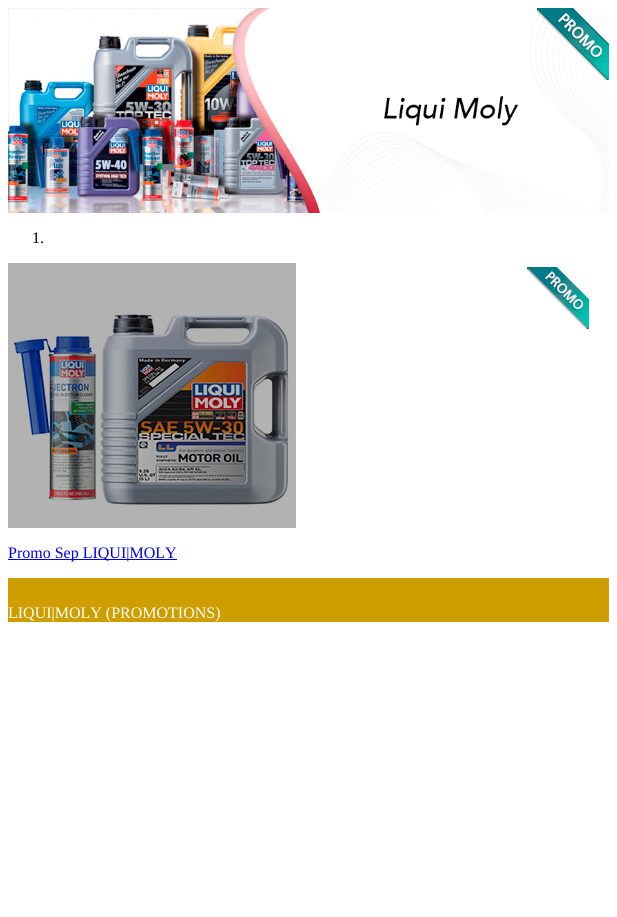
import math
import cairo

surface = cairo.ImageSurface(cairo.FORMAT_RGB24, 617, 917)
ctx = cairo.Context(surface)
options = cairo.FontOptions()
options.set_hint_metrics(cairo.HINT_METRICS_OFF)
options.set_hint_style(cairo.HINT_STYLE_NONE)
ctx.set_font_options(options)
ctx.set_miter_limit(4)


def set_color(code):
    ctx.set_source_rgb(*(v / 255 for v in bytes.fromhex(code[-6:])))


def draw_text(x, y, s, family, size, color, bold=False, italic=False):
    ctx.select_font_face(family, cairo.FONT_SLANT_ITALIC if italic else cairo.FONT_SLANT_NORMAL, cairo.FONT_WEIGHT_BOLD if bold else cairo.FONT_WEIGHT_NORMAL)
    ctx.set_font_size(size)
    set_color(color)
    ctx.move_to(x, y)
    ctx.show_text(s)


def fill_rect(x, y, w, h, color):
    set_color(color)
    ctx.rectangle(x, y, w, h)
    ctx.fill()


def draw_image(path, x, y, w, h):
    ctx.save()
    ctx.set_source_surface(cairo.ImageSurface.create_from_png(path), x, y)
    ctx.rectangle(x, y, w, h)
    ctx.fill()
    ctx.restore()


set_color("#ffffff")
ctx.paint()
draw_image("assets/img1.png", 8, 8, 601, 205)
draw_image("assets/img2.png", 537, 8, 72, 72)
draw_text(32, 243, "1.", "Liberation Serif", 16, "#000000")
draw_image("assets/img3.png", 527, 267, 62, 62)
draw_image("assets/img4.png", 8, 263, 288, 265)
fill_rect(8, 559, 169, 1, "#0000ee")
draw_text(8, 558, "Promo Sep LIQUI|MOLY", "Liberation Serif", 16, "#0000ee")
fill_rect(8, 578, 601, 44, "#ce9e00")
draw_text(8, 618, "LIQUI|MOLY (PROMOTIONS)", "Liberation Serif", 16, "#ffffff")
surface.write_to_png("output.png")
